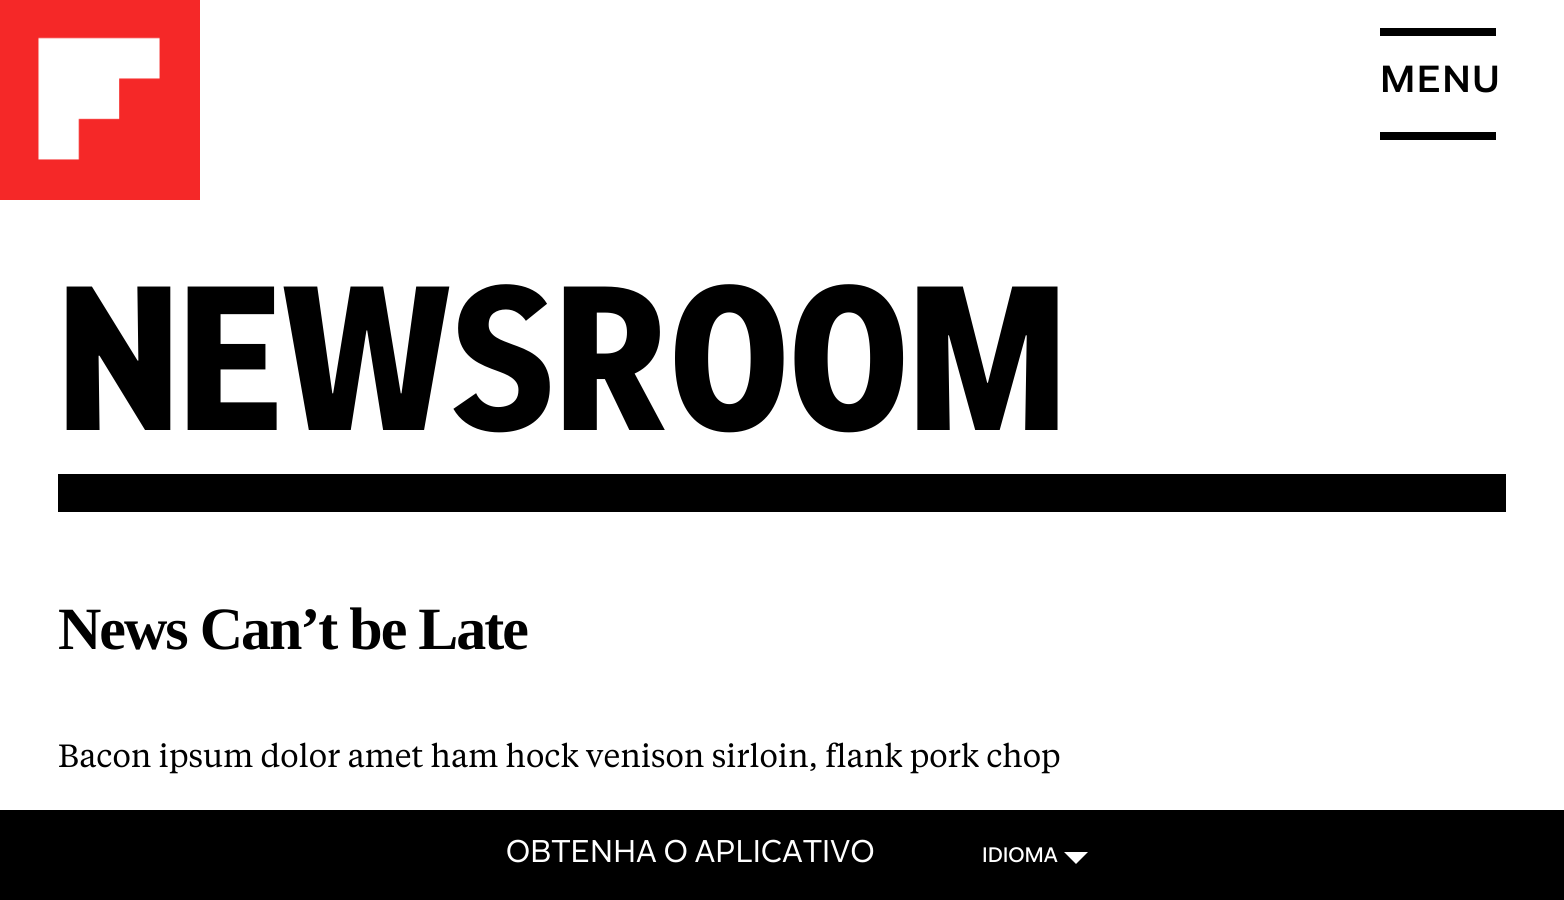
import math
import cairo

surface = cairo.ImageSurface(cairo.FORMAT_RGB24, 1564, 900)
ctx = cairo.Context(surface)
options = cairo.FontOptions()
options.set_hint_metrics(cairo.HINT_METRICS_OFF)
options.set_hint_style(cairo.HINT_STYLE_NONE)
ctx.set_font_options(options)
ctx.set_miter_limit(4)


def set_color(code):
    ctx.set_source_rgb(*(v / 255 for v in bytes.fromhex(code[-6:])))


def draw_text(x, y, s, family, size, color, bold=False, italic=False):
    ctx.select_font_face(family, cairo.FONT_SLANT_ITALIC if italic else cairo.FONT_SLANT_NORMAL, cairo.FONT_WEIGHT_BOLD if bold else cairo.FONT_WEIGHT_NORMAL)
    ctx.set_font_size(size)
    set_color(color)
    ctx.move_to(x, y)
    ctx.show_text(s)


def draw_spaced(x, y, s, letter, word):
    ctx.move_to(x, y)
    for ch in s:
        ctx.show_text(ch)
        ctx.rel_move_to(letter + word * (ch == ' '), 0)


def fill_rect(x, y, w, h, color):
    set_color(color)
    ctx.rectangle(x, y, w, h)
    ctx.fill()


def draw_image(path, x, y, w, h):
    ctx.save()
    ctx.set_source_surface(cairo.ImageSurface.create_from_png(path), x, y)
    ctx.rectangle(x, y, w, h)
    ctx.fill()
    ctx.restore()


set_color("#ffffff")
ctx.paint()
draw_image("assets/img1.png", 0, 0, 200, 200)
fill_rect(1380, 28, 116, 8, "#000000")
ctx.select_font_face("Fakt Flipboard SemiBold")
ctx.set_font_size(36)
draw_spaced(1380, 92, "MENU", 1.5, 0)
fill_rect(1380, 132, 116, 8, "#000000")
draw_text(58, 430, "NEWSROOM", "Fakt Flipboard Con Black", 196, "#000000")
fill_rect(58, 474, 1448, 38, "#000000")
ctx.select_font_face("Liberation Serif", cairo.FONT_SLANT_NORMAL, cairo.FONT_WEIGHT_BOLD)
ctx.set_font_size(60)
draw_spaced(58, 649, "News Can’t be Late", -2, 0)
draw_text(58, 767, "Bacon ipsum dolor amet ham hock venison sirloin, flank pork chop", "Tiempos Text", 32, "#000000")
fill_rect(0, 810, 1564, 90, "#000000")
ctx.select_font_face("Fakt Flipboard")
ctx.set_font_size(30)
set_color("#ffffff")
draw_spaced(506, 862, "OBTENHA O APLICATIVO", 0.25, 0)
draw_text(982, 862, "IDIOMA", "Fakt Flipboard Medium", 20, "#ffffff")
ctx.new_path()
ctx.move_to(1064, 852)
ctx.line_to(1088, 852)
ctx.line_to(1076, 864)
ctx.close_path()
ctx.fill()
surface.write_to_png("output.png")
